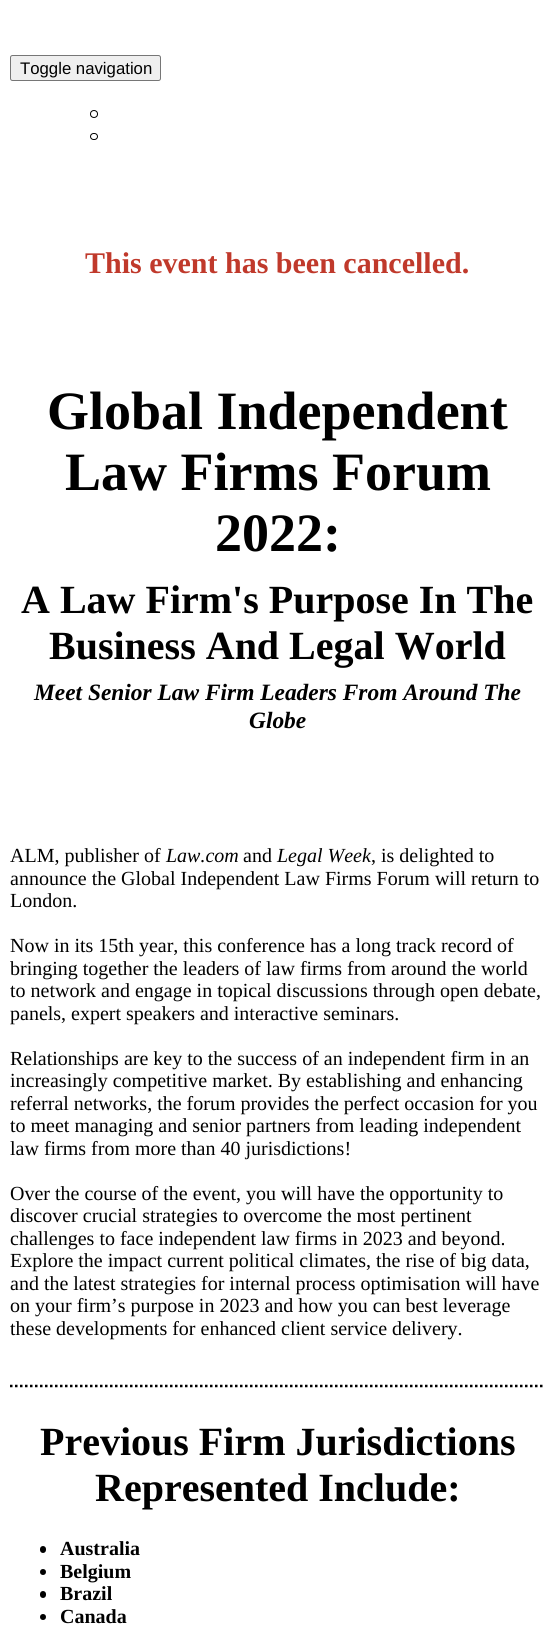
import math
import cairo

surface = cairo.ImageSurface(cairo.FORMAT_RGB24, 555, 1630)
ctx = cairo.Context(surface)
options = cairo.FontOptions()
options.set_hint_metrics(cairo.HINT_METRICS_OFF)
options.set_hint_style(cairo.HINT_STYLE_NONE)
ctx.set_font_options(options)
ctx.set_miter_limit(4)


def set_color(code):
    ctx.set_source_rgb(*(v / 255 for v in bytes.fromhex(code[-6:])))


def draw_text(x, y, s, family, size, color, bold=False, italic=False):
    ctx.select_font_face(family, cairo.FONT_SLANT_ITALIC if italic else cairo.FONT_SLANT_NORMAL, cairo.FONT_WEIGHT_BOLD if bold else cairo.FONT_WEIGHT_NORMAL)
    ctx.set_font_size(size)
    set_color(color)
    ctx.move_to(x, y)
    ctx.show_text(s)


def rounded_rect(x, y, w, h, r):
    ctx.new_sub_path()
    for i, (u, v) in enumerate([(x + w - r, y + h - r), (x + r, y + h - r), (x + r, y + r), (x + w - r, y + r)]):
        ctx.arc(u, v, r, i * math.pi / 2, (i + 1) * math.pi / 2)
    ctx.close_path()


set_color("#ffffff")
ctx.paint()
set_color("#efefef")
rounded_rect(10.5, 55.5, 150, 25, 2)
ctx.fill_preserve()
set_color("#767676")
ctx.set_line_width(1)
ctx.stroke()
draw_text(20, 74, "Toggle navigation", "Liberation Sans", 16.75, "#000000")
ctx.new_path()
ctx.arc(94, 114, 3.5, 0, 2 * math.pi)
ctx.stroke()
rounded_rect(90.5, 133.5, 7, 6, 3)
ctx.stroke()
draw_text(85, 273, "This event has been cancelled.", "Liberation Serif", 30, "#c0392b", bold=True)
draw_text(47, 429, "Global Independent", "Liberation Serif", 54, "#000000", bold=True)
draw_text(65, 490, "Law Firms Forum", "Liberation Serif", 54, "#000000", bold=True)
draw_text(215, 551, "2022:", "Liberation Serif", 54, "#000000", bold=True)
draw_text(21, 613, "A Law Firm's Purpose In The", "Liberation Serif", 40, "#000000", bold=True)
draw_text(49, 659, "Business And Legal World", "Liberation Serif", 40, "#000000", bold=True)
draw_text(34, 700, "Meet Senior Law Firm Leaders From Around The", "Liberation Serif", 23.4, "#000000", bold=True, italic=True)
draw_text(249, 728, "Globe", "Liberation Serif", 23.4, "#000000", bold=True, italic=True)
draw_text(10, 862, "ALM, publisher of", "Liberation Serif", 20, "#000000")
draw_text(166, 862, "Law.com", "Liberation Serif", 20, "#000000", italic=True)
draw_text(243, 862, "and", "Liberation Serif", 20, "#000000")
draw_text(277, 862, "Legal Week", "Liberation Serif", 20, "#000000", italic=True)
draw_text(371, 862, ", is delighted to", "Liberation Serif", 20, "#000000")
draw_text(10, 885, "announce the Global Independent Law Firms Forum will return to", "Liberation Serif", 20, "#000000")
draw_text(10, 907, "London.", "Liberation Serif", 20, "#000000")
draw_text(10, 952, "Now in its 15th year, this conference has a long track record of", "Liberation Serif", 20, "#000000")
draw_text(10, 975, "bringing together the leaders of law firms from around the world", "Liberation Serif", 20, "#000000")
draw_text(10, 997, "to network and engage in topical discussions through open debate,", "Liberation Serif", 20, "#000000")
draw_text(10, 1020, "panels, expert speakers and interactive seminars.", "Liberation Serif", 20, "#000000")
draw_text(10, 1065, "Relationships are key to the success of an independent firm in an", "Liberation Serif", 20, "#000000")
draw_text(10, 1087, "increasingly competitive market. By establishing and enhancing", "Liberation Serif", 20, "#000000")
draw_text(10, 1110, "referral networks, the forum provides the perfect occasion for you", "Liberation Serif", 20, "#000000")
draw_text(10, 1132, "to meet managing and senior partners from leading independent", "Liberation Serif", 20, "#000000")
draw_text(10, 1155, "law firms from more than 40 jurisdictions!", "Liberation Serif", 20, "#000000")
draw_text(10, 1200, "Over the course of the event, you will have the opportunity to", "Liberation Serif", 20, "#000000")
draw_text(10, 1222, "discover crucial strategies to overcome the most pertinent", "Liberation Serif", 20, "#000000")
draw_text(10, 1245, "challenges to face independent law firms in 2023 and beyond.", "Liberation Serif", 20, "#000000")
draw_text(10, 1267, "Explore the impact current political climates, the rise of big data,", "Liberation Serif", 20, "#000000")
draw_text(10, 1290, "and the latest strategies for internal process optimisation will have", "Liberation Serif", 20, "#000000")
draw_text(10, 1312, "on your firm’s purpose in 2023 and how you can best leverage", "Liberation Serif", 20, "#000000")
draw_text(10, 1335, "these developments for enhanced client service delivery.", "Liberation Serif", 20, "#000000")
ctx.new_path()
ctx.move_to(10, 1386)
ctx.line_to(545, 1386)
ctx.set_line_width(2.5)
ctx.set_dash([2.5, 2.5])
ctx.stroke()
draw_text(40, 1455, "Previous Firm Jurisdictions", "Liberation Serif", 40, "#000000", bold=True)
draw_text(95, 1501, "Represented Include:", "Liberation Serif", 40, "#000000", bold=True)
rounded_rect(40, 1546, 6, 7, 3)
ctx.fill()
draw_text(60, 1555, "Australia", "Liberation Serif", 20, "#000000", bold=True)
ctx.new_path()
ctx.arc(43, 1572, 3, 0, 2 * math.pi)
ctx.fill()
draw_text(60, 1578, "Belgium", "Liberation Serif", 20, "#000000", bold=True)
rounded_rect(40, 1591, 6, 7, 3)
ctx.fill()
draw_text(60, 1600, "Brazil", "Liberation Serif", 20, "#000000", bold=True)
ctx.new_path()
ctx.arc(43, 1617, 3, 0, 2 * math.pi)
ctx.fill()
draw_text(60, 1623, "Canada", "Liberation Serif", 20, "#000000", bold=True)
surface.write_to_png("output.png")
